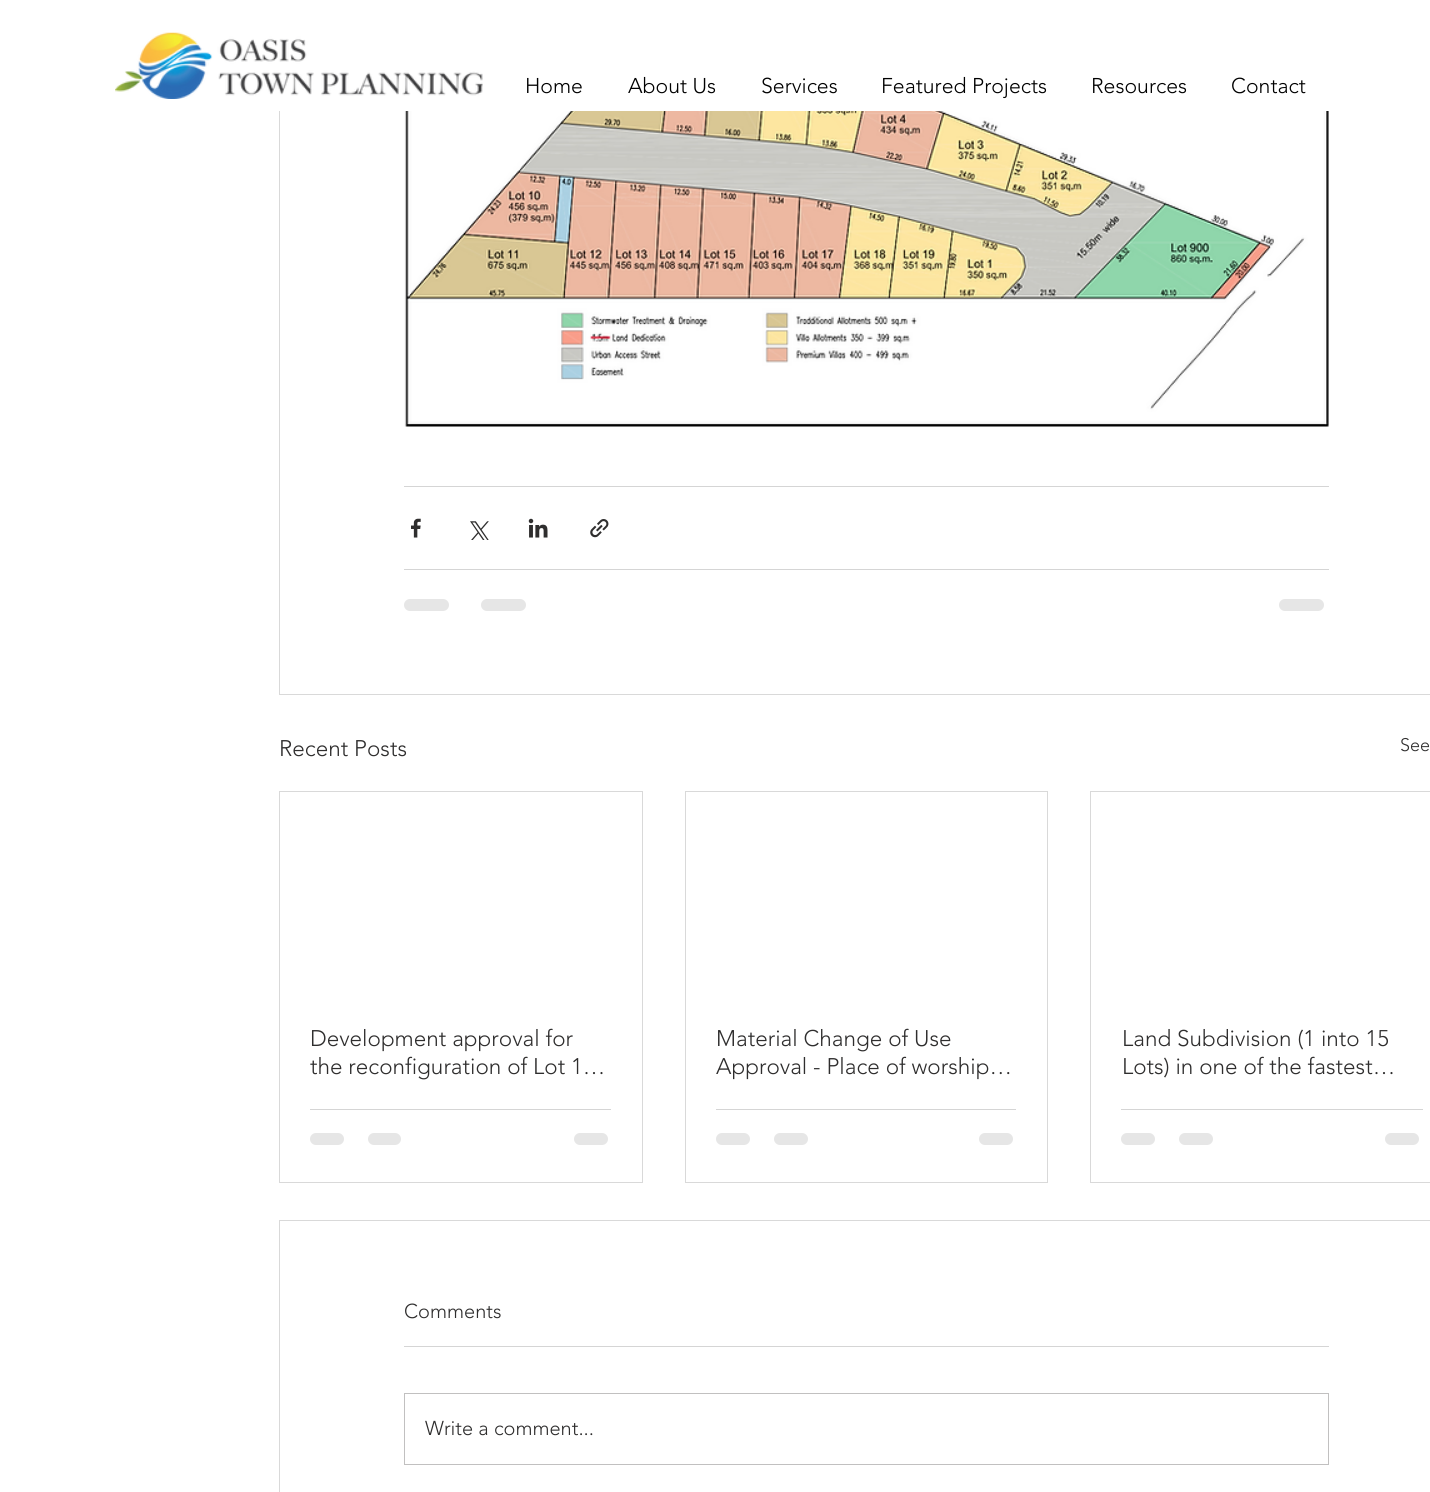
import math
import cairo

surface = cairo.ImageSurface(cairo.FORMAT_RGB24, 1430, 1492)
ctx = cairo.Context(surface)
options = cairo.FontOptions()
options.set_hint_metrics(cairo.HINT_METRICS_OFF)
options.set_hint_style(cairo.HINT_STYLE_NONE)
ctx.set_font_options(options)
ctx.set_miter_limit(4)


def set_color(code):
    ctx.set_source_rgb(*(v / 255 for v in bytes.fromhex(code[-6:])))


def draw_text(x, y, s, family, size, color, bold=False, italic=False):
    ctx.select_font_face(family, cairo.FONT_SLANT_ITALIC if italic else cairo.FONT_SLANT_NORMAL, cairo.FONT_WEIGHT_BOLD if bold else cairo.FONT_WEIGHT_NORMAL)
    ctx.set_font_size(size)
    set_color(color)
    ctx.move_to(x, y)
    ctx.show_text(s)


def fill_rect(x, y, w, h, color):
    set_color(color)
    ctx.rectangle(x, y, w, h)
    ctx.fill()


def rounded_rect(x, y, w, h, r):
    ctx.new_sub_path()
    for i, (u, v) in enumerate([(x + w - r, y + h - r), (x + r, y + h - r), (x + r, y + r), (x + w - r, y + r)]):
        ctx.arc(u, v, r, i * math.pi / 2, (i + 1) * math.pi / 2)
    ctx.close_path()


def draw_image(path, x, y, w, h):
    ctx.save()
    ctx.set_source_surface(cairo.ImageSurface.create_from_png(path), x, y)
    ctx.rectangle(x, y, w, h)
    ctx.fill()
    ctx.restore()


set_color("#ffffff")
ctx.paint()
ctx.rectangle(279.5, -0.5, 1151, 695)
set_color("#d9d9d9")
ctx.set_line_width(1)
ctx.stroke()
fill_rect(279, 0, 1, 111, "#ffffff")
draw_image("assets/img1.png", 115, 32, 368, 67)
draw_text(525, 93, "Home", "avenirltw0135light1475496 Light", 21.25, "#000000")
draw_text(628, 93, "About Us", "avenirltw0135light1475496 Light", 21.25, "#000000")
draw_text(761, 93, "Services", "avenirltw0135light1475496 Light", 21.25, "#000000")
draw_text(881, 93, "Featured Projects", "avenirltw0135light1475496 Light", 21.25, "#000000")
draw_text(1091, 93, "Resources", "avenirltw0135light1475496 Light", 21.25, "#000000")
draw_text(1231, 93, "Contact", "avenirltw0135light1475496 Light", 21.25, "#000000")
draw_image("assets/img2.png", 404, 111, 925, 316)
fill_rect(404, 486, 925, 1, "#d5d5d5")
draw_image("assets/img3.png", 411, 518, 10, 20)
draw_image("assets/img4.png", 470, 521, 19, 19)
draw_image("assets/img5.png", 528, 518, 20, 20)
draw_image("assets/img6.png", 590, 519, 19, 19)
fill_rect(404, 569, 925, 1, "#d5d5d5")
set_color("#e6e6e6")
rounded_rect(404, 599, 45, 12, 6)
ctx.fill()
rounded_rect(481, 599, 45, 12, 6)
ctx.fill()
rounded_rect(1279, 599, 45, 12, 6)
ctx.fill()
draw_text(279, 756, "Recent Posts", "avenirltw0135light1475496 Light", 22.5, "#2f2e2e")
draw_text(1400, 751, "See", "avenirltw0135light1475496 Light", 18, "#2f2e2e")
ctx.rectangle(279.5, 791.5, 363, 391)
set_color("#d9d9d9")
ctx.stroke()
draw_text(310, 1046, "Development approval for", "avenirltw0135light1475496 Light", 22.5, "#2f2e2e")
draw_text(310, 1074, "the reconfiguration of Lot 1…", "avenirltw0135light1475496 Light", 22.5, "#2f2e2e")
fill_rect(310, 1109, 301, 1, "#d5d5d5")
set_color("#e6e6e6")
rounded_rect(310, 1133, 34, 12, 6)
ctx.fill()
rounded_rect(368, 1133, 33, 12, 6)
ctx.fill()
rounded_rect(574, 1133, 34, 12, 6)
ctx.fill()
ctx.rectangle(685.5, 791.5, 362, 391)
set_color("#d9d9d9")
ctx.stroke()
draw_text(716, 1046, "Material Change of Use", "avenirltw0135light1475496 Light", 22.5, "#2f2e2e")
draw_text(716, 1074, "Approval - Place of worship…", "avenirltw0135light1475496 Light", 22.5, "#2f2e2e")
fill_rect(716, 1109, 300, 1, "#d5d5d5")
set_color("#e6e6e6")
rounded_rect(716, 1133, 34, 12, 6)
ctx.fill()
rounded_rect(774, 1133, 34, 12, 6)
ctx.fill()
rounded_rect(979, 1133, 34, 12, 6)
ctx.fill()
ctx.rectangle(1090.5, 791.5, 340, 391)
set_color("#d9d9d9")
ctx.stroke()
draw_text(1122, 1046, "Land Subdivision (1 into 15", "avenirltw0135light1475496 Light", 22.5, "#2f2e2e")
draw_text(1122, 1074, "Lots) in one of the fastest…", "avenirltw0135light1475496 Light", 22.5, "#2f2e2e")
fill_rect(1121, 1109, 302, 1, "#d5d5d5")
set_color("#e6e6e6")
rounded_rect(1121, 1133, 34, 12, 6)
ctx.fill()
rounded_rect(1179, 1133, 34, 12, 6)
ctx.fill()
rounded_rect(1385, 1133, 34, 12, 6)
ctx.fill()
ctx.rectangle(279.5, 1220.5, 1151, 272)
set_color("#d9d9d9")
ctx.stroke()
draw_text(404, 1318, "Comments", "avenirltw0135light1475496 Light", 20, "#2f2e2e")
fill_rect(404, 1346, 925, 1, "#d5d5d5")
ctx.rectangle(404.5, 1393.5, 924, 71)
set_color("#c1c0c0")
ctx.stroke()
draw_text(425, 1435, "Write a comment...", "avenirltw0135light1475496 Light", 20, "#2f2e2e")
surface.write_to_png("output.png")
